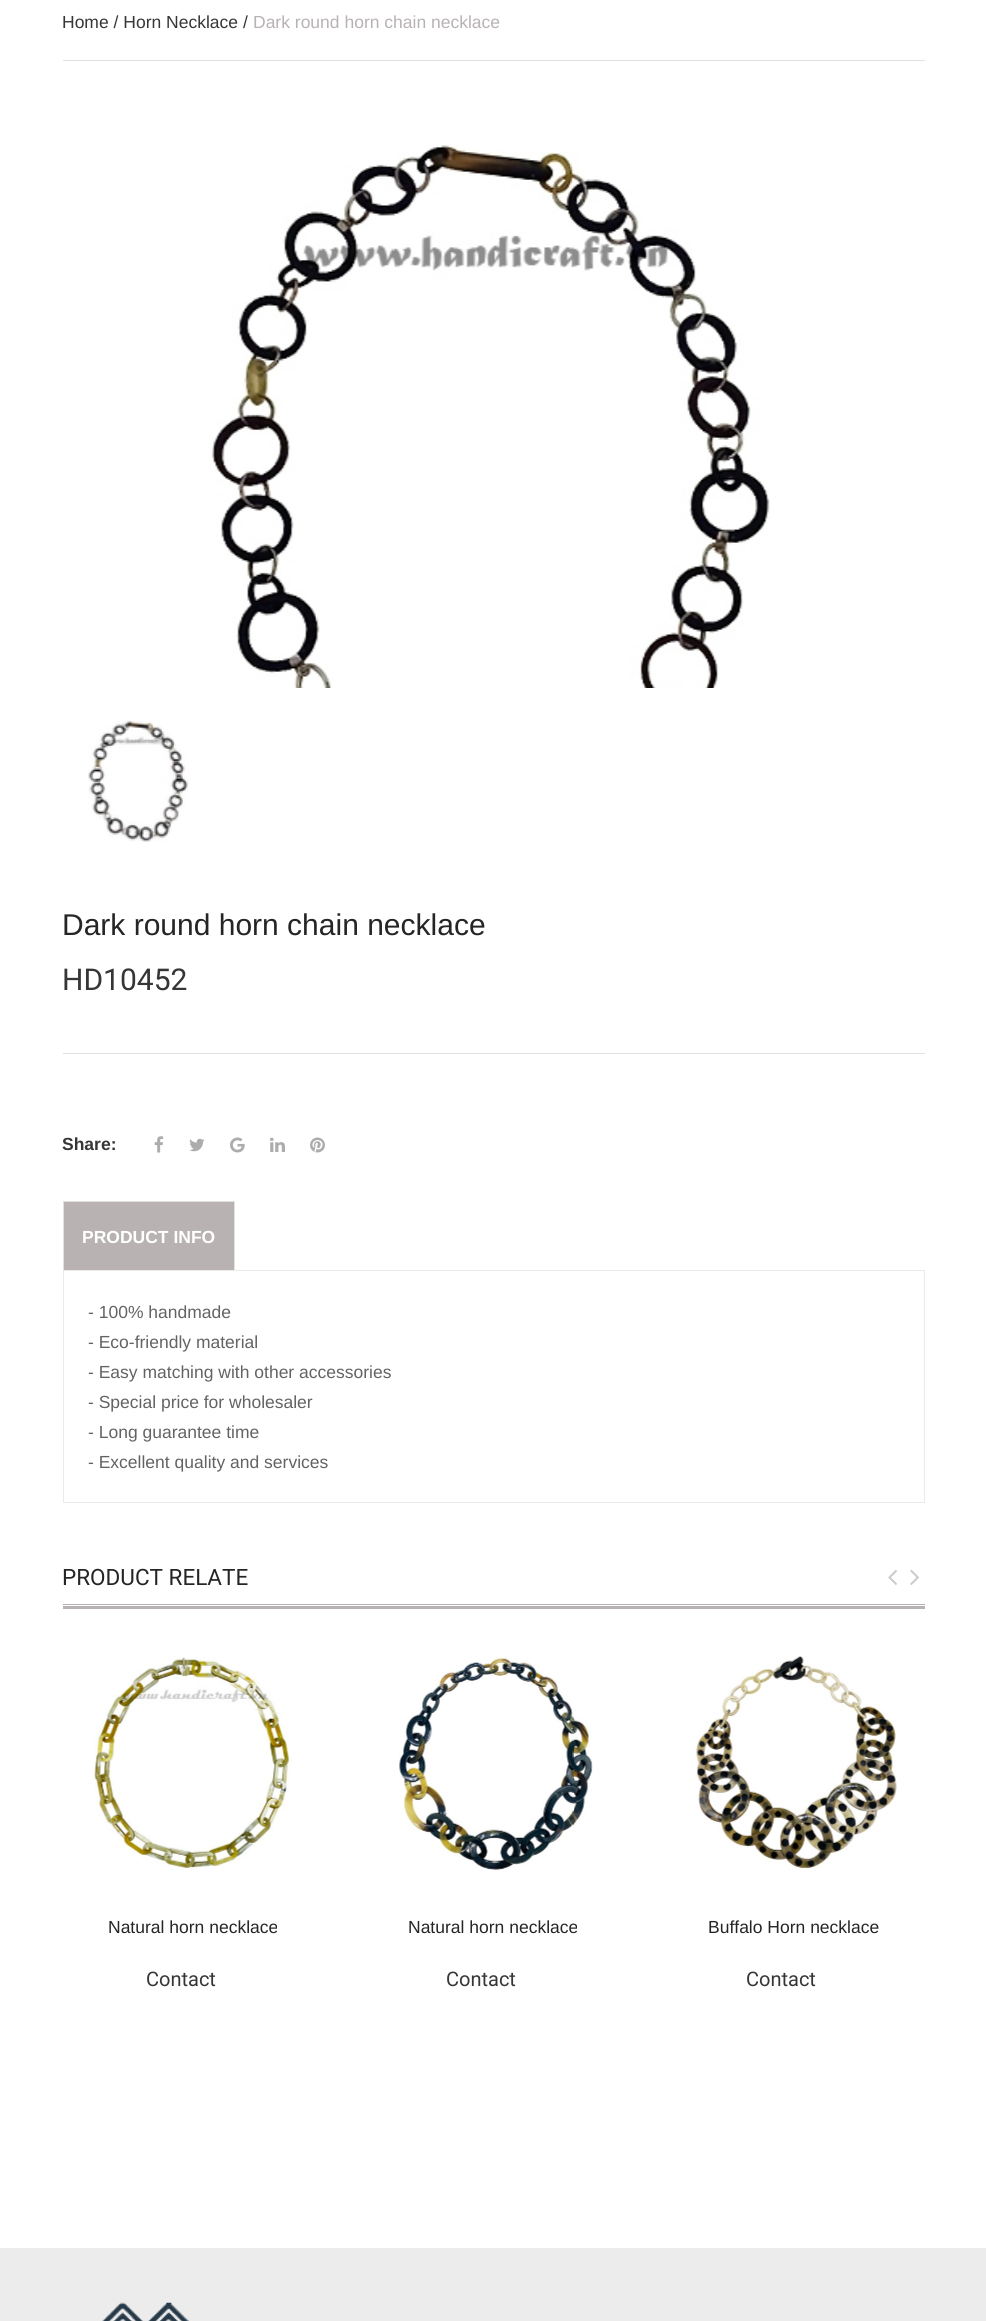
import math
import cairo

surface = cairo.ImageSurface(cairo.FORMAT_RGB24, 986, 2321)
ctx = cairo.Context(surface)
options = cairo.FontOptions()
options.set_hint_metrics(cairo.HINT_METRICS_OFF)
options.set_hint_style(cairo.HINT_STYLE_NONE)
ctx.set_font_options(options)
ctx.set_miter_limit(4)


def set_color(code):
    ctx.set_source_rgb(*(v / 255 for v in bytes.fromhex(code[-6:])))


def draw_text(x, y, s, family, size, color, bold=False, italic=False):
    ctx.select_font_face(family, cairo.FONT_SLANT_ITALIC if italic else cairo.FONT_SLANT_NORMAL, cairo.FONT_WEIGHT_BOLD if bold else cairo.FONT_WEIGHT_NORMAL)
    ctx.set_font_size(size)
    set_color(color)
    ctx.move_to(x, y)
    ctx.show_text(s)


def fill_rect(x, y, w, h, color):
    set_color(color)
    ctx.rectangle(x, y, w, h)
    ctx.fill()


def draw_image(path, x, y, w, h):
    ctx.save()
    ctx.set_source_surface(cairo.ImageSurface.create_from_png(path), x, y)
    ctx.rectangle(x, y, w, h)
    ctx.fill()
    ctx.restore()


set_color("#ffffff")
ctx.paint()
fill_rect(63, 60, 862, 1, "#e1e1e1")
draw_text(62, 28, "Home / Horn Necklace /", "Liberation Sans", 17.5, "#363636")
draw_text(253, 28, "Dark round horn chain necklace", "Liberation Sans", 17.5, "#b8b2b2")
draw_image("assets/img1.png", 211, 145, 559, 543)
draw_image("assets/img2.png", 88, 720, 100, 122)
draw_text(62, 935, "Dark round horn chain necklace", "Liberation Sans", 30, "#252525")
draw_text(62, 990, "HD10452", "Roboto", 30, "#363636")
fill_rect(63, 1053, 862, 1, "#e1e1e1")
draw_text(62, 1150, "Share:", "Liberation Sans", 17.5, "#363636", bold=True)
draw_image("assets/img3.png", 154, 1136, 10, 17)
draw_image("assets/img4.png", 189, 1138, 16, 14)
draw_image("assets/img5.png", 230, 1137, 15, 16)
draw_image("assets/img6.png", 270, 1137, 15, 15)
draw_image("assets/img7.png", 310, 1137, 15, 16)
fill_rect(63, 1201, 1, 69, "#e1e1e1")
fill_rect(64, 1202, 170, 68, "#b8b2b2")
fill_rect(64, 1201, 171, 1, "#e1e1e1")
fill_rect(234, 1201, 1, 70, "#e1e1e1")
draw_text(82, 1243, "PRODUCT INFO", "Liberation Sans", 17.5, "#ffffff", bold=True)
ctx.rectangle(63.5, 1270.5, 861, 232)
set_color("#ebebeb")
ctx.set_line_width(1)
ctx.stroke()
draw_text(88, 1318, "- 100% handmade", "Liberation Sans", 17.5, "#636363")
draw_text(88, 1348, "- Eco-friendly material", "Liberation Sans", 17.5, "#636363")
draw_text(88, 1378, "- Easy matching with other accessories", "Liberation Sans", 17.5, "#636363")
draw_text(88, 1408, "- Special price for wholesaler", "Liberation Sans", 17.5, "#636363")
draw_text(88, 1438, "- Long guarantee time", "Liberation Sans", 17.5, "#636363")
draw_text(88, 1468, "- Excellent quality and services", "Liberation Sans", 17.5, "#636363")
draw_text(62, 1585, "PRODUCT RELATE", "Roboto", 22.5, "#252525")
fill_rect(63, 1604, 862, 1, "#b8b2b2")
fill_rect(63, 1606, 862, 3, "#b8b2b2")
draw_image("assets/img8.png", 888, 1569, 9, 16)
draw_image("assets/img9.png", 910, 1569, 9, 16)
draw_image("assets/img10.png", 94, 1657, 196, 212)
draw_text(108, 1933, "Natural horn necklace", "Liberation Sans", 17.5, "#252525")
draw_text(146, 1986, "Contact", "Roboto", 20, "#363636")
draw_image("assets/img11.png", 399, 1657, 194, 213)
draw_text(408, 1933, "Natural horn necklace", "Liberation Sans", 17.5, "#252525")
draw_text(446, 1986, "Contact", "Roboto", 20, "#363636")
draw_image("assets/img12.png", 696, 1656, 201, 213)
draw_text(708, 1933, "Buffalo Horn necklace", "Liberation Sans", 17.5, "#252525")
draw_text(746, 1986, "Contact", "Roboto", 20, "#363636")
fill_rect(0, 2248, 986, 73, "#ececec")
draw_image("assets/img13.png", 102, 2302, 87, 19)
surface.write_to_png("output.png")
